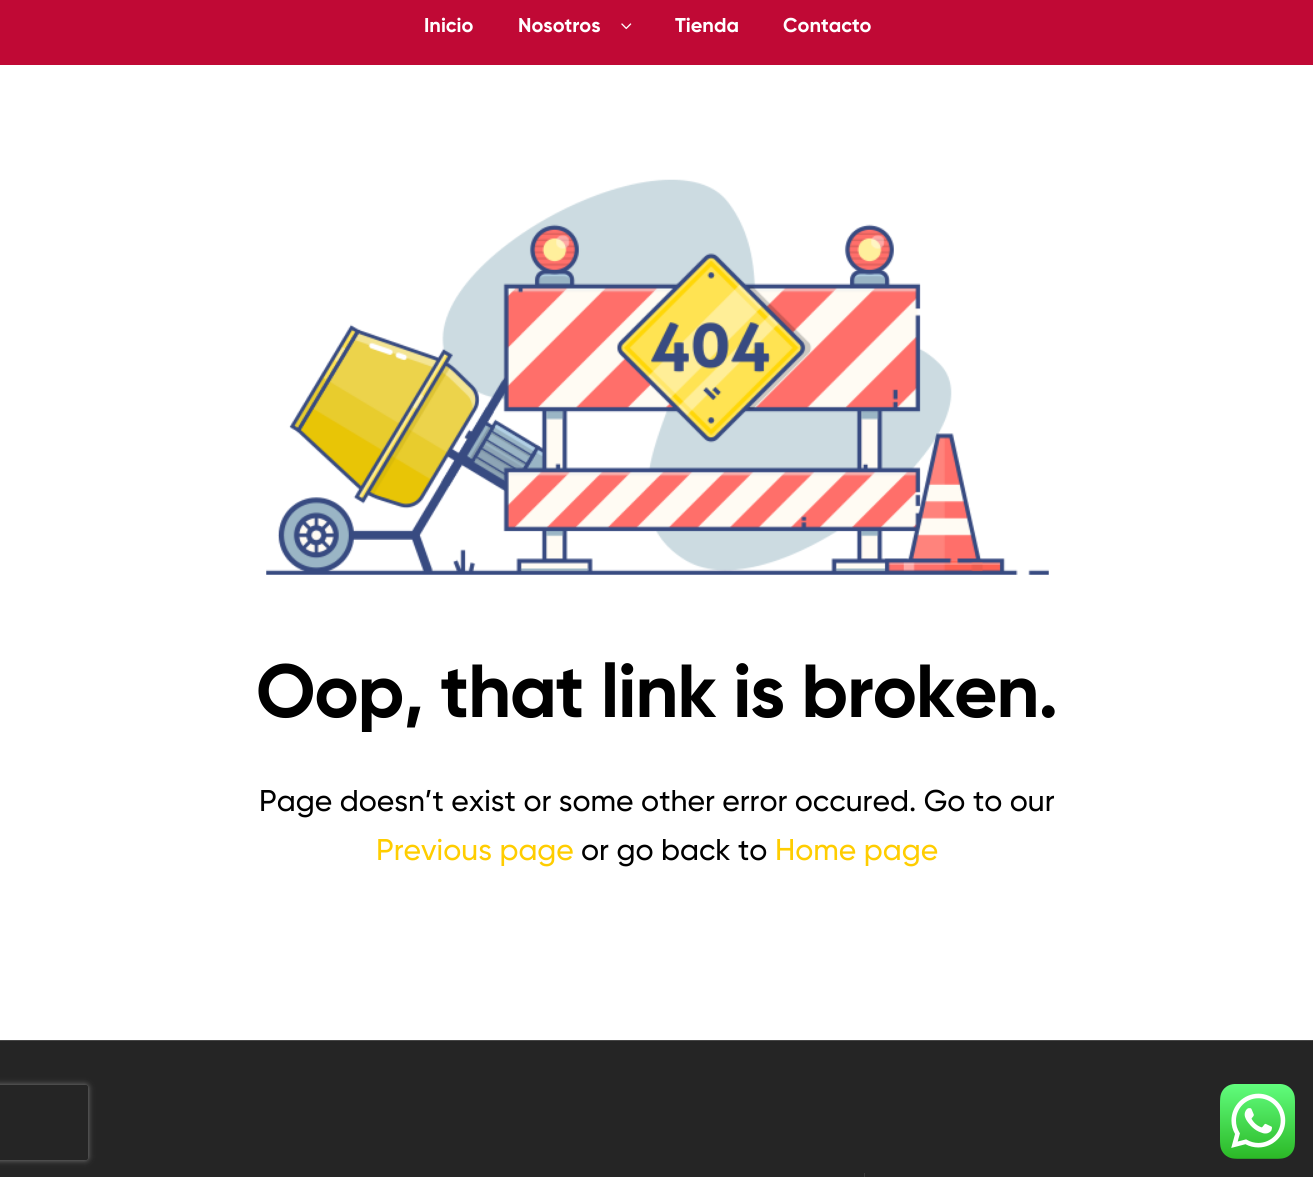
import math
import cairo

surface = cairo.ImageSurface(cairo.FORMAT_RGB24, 1313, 1177)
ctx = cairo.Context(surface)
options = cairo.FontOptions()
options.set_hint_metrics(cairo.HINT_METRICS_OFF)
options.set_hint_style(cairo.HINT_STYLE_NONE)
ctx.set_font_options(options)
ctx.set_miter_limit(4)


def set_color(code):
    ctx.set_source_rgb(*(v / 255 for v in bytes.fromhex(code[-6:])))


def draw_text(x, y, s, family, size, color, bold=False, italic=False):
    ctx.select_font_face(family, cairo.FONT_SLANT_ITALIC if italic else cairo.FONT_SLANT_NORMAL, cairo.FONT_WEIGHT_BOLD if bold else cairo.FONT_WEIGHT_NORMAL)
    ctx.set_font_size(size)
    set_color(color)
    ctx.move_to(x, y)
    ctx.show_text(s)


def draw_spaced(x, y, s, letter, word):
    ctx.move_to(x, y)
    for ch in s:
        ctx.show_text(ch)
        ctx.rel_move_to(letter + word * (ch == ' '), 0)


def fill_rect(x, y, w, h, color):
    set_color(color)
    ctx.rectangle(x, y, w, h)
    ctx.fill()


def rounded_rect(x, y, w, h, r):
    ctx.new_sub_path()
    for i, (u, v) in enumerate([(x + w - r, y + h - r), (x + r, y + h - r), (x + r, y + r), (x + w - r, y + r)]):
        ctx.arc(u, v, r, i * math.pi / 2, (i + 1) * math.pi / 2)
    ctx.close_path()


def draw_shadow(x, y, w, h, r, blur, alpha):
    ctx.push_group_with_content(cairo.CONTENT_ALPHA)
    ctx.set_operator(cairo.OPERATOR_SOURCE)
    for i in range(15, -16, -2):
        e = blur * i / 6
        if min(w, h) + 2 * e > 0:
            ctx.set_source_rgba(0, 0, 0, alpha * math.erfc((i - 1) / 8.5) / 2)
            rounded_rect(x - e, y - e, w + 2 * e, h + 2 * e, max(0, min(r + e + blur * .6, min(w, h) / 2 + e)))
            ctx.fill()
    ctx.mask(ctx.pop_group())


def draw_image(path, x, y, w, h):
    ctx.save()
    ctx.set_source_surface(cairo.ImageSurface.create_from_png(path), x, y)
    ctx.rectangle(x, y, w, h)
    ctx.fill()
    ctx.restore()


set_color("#ffffff")
ctx.paint()
fill_rect(0, 0, 1313, 65, "#c00935")
draw_text(424, 32, "Inicio", "Gilroy", 20, "#ffffff", bold=True)
draw_text(518, 32, "Nosotros", "Gilroy", 20, "#ffffff", bold=True)
draw_image("assets/img1.png", 621, 23, 11, 7)
draw_text(675, 32, "Tienda", "Gilroy", 20, "#ffffff", bold=True)
draw_text(783, 32, "Contacto", "Gilroy", 20, "#ffffff", bold=True)
draw_image("assets/img2.png", 266, 179, 783, 396)
ctx.set_font_size(75)
set_color("#000000")
draw_spaced(256, 717, "Oop, that link is broken.", -1.25, 0)
draw_text(259, 811, "Page doesn’t exist or some other error occured. Go to our", "Gilroy Medium", 30, "#000000")
draw_text(376, 860, "Previous page", "Gilroy Medium", 30, "#ffcd00")
draw_text(581, 860, "or go back to", "Gilroy Medium", 30, "#000000")
draw_text(775, 860, "Home page", "Gilroy Medium", 30, "#ffcd00")
fill_rect(0, 1041, 1313, 136, "#252525")
fill_rect(0, 1040, 1313, 1, "#464646")
fill_rect(864, 1173, 1, 4, "#3b3b3b")
ctx.save()
ctx.set_fill_rule(cairo.FILL_RULE_EVEN_ODD)
ctx.new_path()
ctx.move_to(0, 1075)
ctx.line_to(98, 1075)
ctx.line_to(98, 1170)
ctx.line_to(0, 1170)
ctx.close_path()
ctx.move_to(-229.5, 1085)
ctx.line_to(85.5, 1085)
ctx.curve_to(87, 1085, 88, 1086, 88, 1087.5)
ctx.line_to(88, 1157.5)
ctx.curve_to(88, 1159, 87, 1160, 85.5, 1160)
ctx.line_to(-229.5, 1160)
ctx.curve_to(-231, 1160, -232, 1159, -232, 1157.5)
ctx.line_to(-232, 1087.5)
ctx.curve_to(-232, 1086, -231, 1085, -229.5, 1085)
ctx.close_path()
ctx.clip()
set_color("#808080")
draw_shadow(-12, 1085, 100, 75, 2.5, 3, 1)
ctx.restore()
draw_image("assets/img3.png", 1220, 1084, 75, 75)
surface.write_to_png("output.png")
